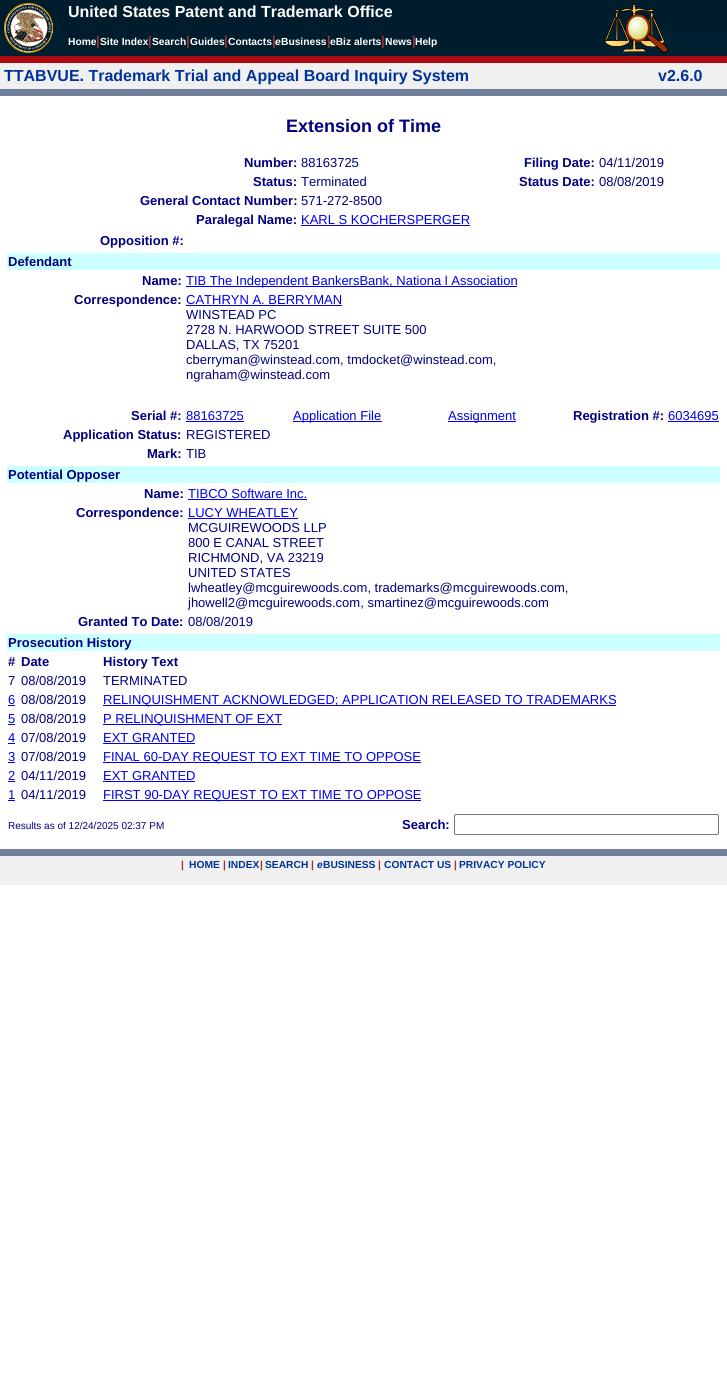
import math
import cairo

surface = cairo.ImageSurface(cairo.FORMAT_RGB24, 727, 1388)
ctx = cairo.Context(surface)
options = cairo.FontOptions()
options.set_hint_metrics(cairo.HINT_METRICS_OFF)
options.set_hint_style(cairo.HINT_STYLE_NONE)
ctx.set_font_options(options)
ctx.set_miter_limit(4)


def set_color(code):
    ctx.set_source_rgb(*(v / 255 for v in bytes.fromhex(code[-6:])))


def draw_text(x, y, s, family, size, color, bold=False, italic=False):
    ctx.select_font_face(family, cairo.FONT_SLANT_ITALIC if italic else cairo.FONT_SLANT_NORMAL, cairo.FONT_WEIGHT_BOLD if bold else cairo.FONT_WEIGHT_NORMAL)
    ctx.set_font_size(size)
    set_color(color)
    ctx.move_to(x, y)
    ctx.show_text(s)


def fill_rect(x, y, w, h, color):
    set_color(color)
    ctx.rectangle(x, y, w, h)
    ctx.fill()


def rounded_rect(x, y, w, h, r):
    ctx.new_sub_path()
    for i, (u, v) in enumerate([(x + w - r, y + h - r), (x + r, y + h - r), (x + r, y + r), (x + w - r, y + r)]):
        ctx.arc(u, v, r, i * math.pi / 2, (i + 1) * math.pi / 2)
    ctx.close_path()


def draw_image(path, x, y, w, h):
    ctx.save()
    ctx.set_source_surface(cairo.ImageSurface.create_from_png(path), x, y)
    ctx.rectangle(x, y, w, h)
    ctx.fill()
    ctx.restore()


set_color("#ffffff")
ctx.paint()
fill_rect(0, 0, 727, 30, "#001d2d")
fill_rect(0, 30, 727, 26, "#002032")
draw_image("assets/img1.png", 4, 3, 49, 50)
draw_text(68, 17, "United States Patent and Trademark Office", "Liberation Sans", 16, "#ffffff", bold=True)
draw_image("assets/img2.png", 604, 3, 64, 50)
fill_rect(65, 30, 536, 26, "#001d2d")
draw_text(68, 45, "Home", "Liberation Sans", 10.25, "#ffffff", bold=True)
draw_text(96, 45, "|", "Liberation Sans", 13, "#993333", bold=True)
draw_text(100, 45, "Site Index", "Liberation Sans", 10.25, "#ffffff", bold=True)
draw_text(148, 45, "|", "Liberation Sans", 13, "#993333", bold=True)
draw_text(152, 45, "Search", "Liberation Sans", 10.25, "#ffffff", bold=True)
draw_text(186, 45, "|", "Liberation Sans", 13, "#993333", bold=True)
draw_text(190, 45, "Guides", "Liberation Sans", 10.25, "#ffffff", bold=True)
draw_text(224, 45, "|", "Liberation Sans", 13, "#993333", bold=True)
draw_text(228, 45, "Contacts", "Liberation Sans", 10.25, "#ffffff", bold=True)
draw_text(272, 45, "|", "Liberation Sans", 13, "#993333", bold=True)
draw_text(275, 45, "e", "Liberation Sans", 10.25, "#ffffff", bold=True, italic=True)
draw_text(281, 45, "Business", "Liberation Sans", 10.25, "#ffffff", bold=True)
draw_text(327, 45, "|", "Liberation Sans", 13, "#993333", bold=True)
draw_text(330, 45, "eBiz alerts", "Liberation Sans", 10.25, "#ffffff", bold=True)
draw_text(381, 45, "|", "Liberation Sans", 13, "#993333", bold=True)
draw_text(385, 45, "News", "Liberation Sans", 10.25, "#ffffff", bold=True)
draw_text(412, 45, "|", "Liberation Sans", 13, "#993333", bold=True)
draw_text(415, 45, "Help", "Liberation Sans", 10.25, "#ffffff", bold=True)
fill_rect(0, 56, 727, 7, "#ac0911")
fill_rect(0, 63, 727, 26, "#f0f0f0")
draw_text(4, 81, "TTABVUE. Trademark Trial and Appeal Board Inquiry System", "Liberation Sans", 16, "#003399", bold=True)
draw_text(658, 81, "v2.6.0", "Liberation Sans", 16, "#003399", bold=True)
fill_rect(0, 89, 727, 7, "#71819b")
draw_text(286, 132, "Extension of Time", "Liberation Sans", 18, "#000080", bold=True)
draw_text(244, 167, "Number:", "Liberation Sans", 13, "#000080", bold=True)
draw_text(301, 167, "88163725", "Liberation Sans", 13, "#000080")
draw_text(524, 167, "Filing Date:", "Liberation Sans", 13, "#000080", bold=True)
draw_text(599, 167, "04/11/2019", "Liberation Sans", 13, "#000080")
draw_text(253, 186, "Status:", "Liberation Sans", 13, "#000080", bold=True)
draw_text(301, 186, "Terminated", "Liberation Sans", 13, "#000080")
draw_text(519, 186, "Status Date:", "Liberation Sans", 13, "#000080", bold=True)
draw_text(599, 186, "08/08/2019", "Liberation Sans", 13, "#000080")
draw_text(140, 205, "General Contact Number:", "Liberation Sans", 13, "#000080", bold=True)
draw_text(301, 205, "571-272-8500", "Liberation Sans", 13, "#000080")
draw_text(196, 224, "Paralegal Name:", "Liberation Sans", 13, "#000080", bold=True)
draw_text(301, 224, "KARL S KOCHERSPERGER", "Liberation Sans", 13, "#0000ee")
fill_rect(301, 225, 169, 1, "#0000ee")
draw_text(100, 245, "Opposition #:", "Liberation Sans", 13, "#000080", bold=True)
fill_rect(7, 253, 713, 17, "#ccffff")
draw_text(8, 266, "Defendant", "Liberation Sans", 13, "#000080", bold=True)
draw_text(142, 285, "Name:", "Liberation Sans", 13, "#000080", bold=True)
fill_rect(186, 286, 331, 1, "#0000ee")
draw_text(186, 285, "TIB The Independent BankersBank, Nationa l Association", "Liberation Sans", 13, "#0000ee")
draw_text(74, 304, "Correspondence:", "Liberation Sans", 13, "#000080", bold=True)
draw_text(186, 304, "CATHRYN A. BERRYMAN", "Liberation Sans", 13, "#0000ee")
fill_rect(186, 305, 156, 1, "#0000ee")
draw_text(186, 319, "WINSTEAD PC", "Liberation Sans", 13, "#000080")
draw_text(186, 334, "2728 N. HARWOOD STREET SUITE 500", "Liberation Sans", 13, "#000080")
draw_text(186, 349, "DALLAS, TX 75201", "Liberation Sans", 13, "#000080")
draw_text(186, 364, "cberryman@winstead.com, tmdocket@winstead.com,", "Liberation Sans", 13, "#000080")
draw_text(186, 379, "ngraham@winstead.com", "Liberation Sans", 13, "#000080")
draw_text(131, 420, "Serial #:", "Liberation Sans", 13, "#000080", bold=True)
draw_text(186, 420, "88163725", "Liberation Sans", 13, "#0000ee")
fill_rect(186, 421, 58, 1, "#0000ee")
fill_rect(293, 421, 89, 1, "#0000ee")
draw_text(293, 420, "Application File", "Liberation Sans", 13, "#0000ee")
fill_rect(448, 421, 68, 1, "#0000ee")
draw_text(448, 420, "Assignment", "Liberation Sans", 13, "#0000ee")
draw_text(573, 420, "Registration #:", "Liberation Sans", 13, "#000080", bold=True)
draw_text(668, 420, "6034695", "Liberation Sans", 13, "#0000ee")
fill_rect(668, 421, 51, 1, "#0000ee")
draw_text(63, 439, "Application Status:", "Liberation Sans", 13, "#000080", bold=True)
draw_text(186, 439, "REGISTERED", "Liberation Sans", 13, "#000080")
draw_text(147, 458, "Mark:", "Liberation Sans", 13, "#000080", bold=True)
draw_text(186, 458, "TIB", "Liberation Sans", 13, "#000080")
fill_rect(7, 466, 713, 17, "#ccffff")
draw_text(8, 479, "Potential Opposer", "Liberation Sans", 13, "#000080", bold=True)
draw_text(144, 498, "Name:", "Liberation Sans", 13, "#000080", bold=True)
draw_text(188, 498, "TIBCO Software Inc.", "Liberation Sans", 13, "#0000ee")
fill_rect(188, 499, 119, 1, "#0000ee")
draw_text(76, 517, "Correspondence:", "Liberation Sans", 13, "#000080", bold=True)
draw_text(188, 517, "LUCY WHEATLEY", "Liberation Sans", 13, "#0000ee")
fill_rect(188, 518, 110, 1, "#0000ee")
draw_text(188, 532, "MCGUIREWOODS LLP", "Liberation Sans", 13, "#000080")
draw_text(188, 547, "800 E CANAL STREET", "Liberation Sans", 13, "#000080")
draw_text(188, 562, "RICHMOND, VA 23219", "Liberation Sans", 13, "#000080")
draw_text(188, 577, "UNITED STATES", "Liberation Sans", 13, "#000080")
draw_text(188, 592, "lwheatley@mcguirewoods.com, trademarks@mcguirewoods.com,", "Liberation Sans", 13, "#000080")
draw_text(188, 607, "jhowell2@mcguirewoods.com, smartinez@mcguirewoods.com", "Liberation Sans", 13, "#000080")
draw_text(78, 626, "Granted To Date:", "Liberation Sans", 13, "#000080", bold=True)
draw_text(188, 626, "08/08/2019", "Liberation Sans", 13, "#000080")
fill_rect(7, 634, 713, 17, "#ccffff")
draw_text(8, 647, "Prosecution History", "Liberation Sans", 13, "#000080", bold=True)
draw_text(8, 666, "#", "Liberation Sans", 13, "#000080", bold=True)
draw_text(21, 666, "Date", "Liberation Sans", 13, "#000080", bold=True)
draw_text(103, 666, "History Text", "Liberation Sans", 13, "#000080", bold=True)
draw_text(8, 685, "7", "Liberation Sans", 13, "#000080")
draw_text(21, 685, "08/08/2019", "Liberation Sans", 13, "#000080")
draw_text(103, 685, "TERMINATED", "Liberation Sans", 13, "#000080")
draw_text(8, 704, "6", "Liberation Sans", 13, "#0000ee")
fill_rect(8, 705, 7, 1, "#0000ee")
draw_text(21, 704, "08/08/2019", "Liberation Sans", 13, "#000080")
fill_rect(103, 705, 513, 1, "#0000ee")
draw_text(103, 704, "RELINQUISHMENT ACKNOWLEDGED; APPLICATION RELEASED TO TRADEMARKS", "Liberation Sans", 13, "#0000ee")
draw_text(8, 723, "5", "Liberation Sans", 13, "#0000ee")
fill_rect(8, 724, 7, 1, "#0000ee")
draw_text(21, 723, "08/08/2019", "Liberation Sans", 13, "#000080")
fill_rect(103, 724, 179, 1, "#0000ee")
draw_text(103, 723, "P RELINQUISHMENT OF EXT", "Liberation Sans", 13, "#0000ee")
draw_text(8, 742, "4", "Liberation Sans", 13, "#0000ee")
fill_rect(8, 743, 7, 1, "#0000ee")
draw_text(21, 742, "07/08/2019", "Liberation Sans", 13, "#000080")
draw_text(103, 742, "EXT GRANTED", "Liberation Sans", 13, "#0000ee")
fill_rect(103, 743, 92, 1, "#0000ee")
draw_text(8, 761, "3", "Liberation Sans", 13, "#0000ee")
fill_rect(8, 762, 7, 1, "#0000ee")
draw_text(21, 761, "07/08/2019", "Liberation Sans", 13, "#000080")
fill_rect(103, 762, 318, 1, "#0000ee")
draw_text(103, 761, "FINAL 60-DAY REQUEST TO EXT TIME TO OPPOSE", "Liberation Sans", 13, "#0000ee")
draw_text(8, 780, "2", "Liberation Sans", 13, "#0000ee")
fill_rect(8, 781, 7, 1, "#0000ee")
draw_text(21, 780, "04/11/2019", "Liberation Sans", 13, "#000080")
draw_text(103, 780, "EXT GRANTED", "Liberation Sans", 13, "#0000ee")
fill_rect(103, 781, 92, 1, "#0000ee")
draw_text(8, 799, "1", "Liberation Sans", 13, "#0000ee")
fill_rect(8, 800, 7, 1, "#0000ee")
draw_text(21, 799, "04/11/2019", "Liberation Sans", 13, "#000080")
fill_rect(103, 800, 318, 1, "#0000ee")
draw_text(103, 799, "FIRST 90-DAY REQUEST TO EXT TIME TO OPPOSE", "Liberation Sans", 13, "#0000ee")
draw_text(8, 829, "Results as of 12/24/2025 02:37 PM", "Liberation Sans", 10, "#000080")
draw_text(402, 829, "Search:", "Liberation Sans", 13, "#000080", bold=True)
rounded_rect(454.5, 814.5, 264, 20, 1.5)
set_color("#767676")
ctx.set_line_width(1)
ctx.stroke()
fill_rect(0, 849, 727, 7, "#71819b")
fill_rect(0, 856, 727, 29, "#f0f0f0")
draw_text(181, 868, "|", "Liberation Sans", 10.25, "#993333", bold=True)
draw_text(189, 868, "HOME", "Liberation Sans", 10.25, "#003399", bold=True)
draw_text(223, 868, "|", "Liberation Sans", 10.25, "#993333", bold=True)
draw_text(228, 868, "INDEX", "Liberation Sans", 10.25, "#003399", bold=True)
draw_text(260, 868, "|", "Liberation Sans", 10.25, "#993333", bold=True)
draw_text(265, 868, "SEARCH", "Liberation Sans", 10.25, "#003399", bold=True)
draw_text(311, 868, "|", "Liberation Sans", 10.25, "#993333", bold=True)
draw_text(317, 868, "e", "Liberation Sans", 10.25, "#003399", bold=True, italic=True)
draw_text(323, 868, "BUSINESS", "Liberation Sans", 10.25, "#003399", bold=True)
draw_text(378, 868, "|", "Liberation Sans", 10.25, "#993333", bold=True)
draw_text(384, 868, "CONTACT US", "Liberation Sans", 10.25, "#003399", bold=True)
draw_text(454, 868, "|", "Liberation Sans", 10.25, "#993333", bold=True)
draw_text(459, 868, "PRIVACY POLICY", "Liberation Sans", 10.25, "#003399", bold=True)
surface.write_to_png("output.png")
